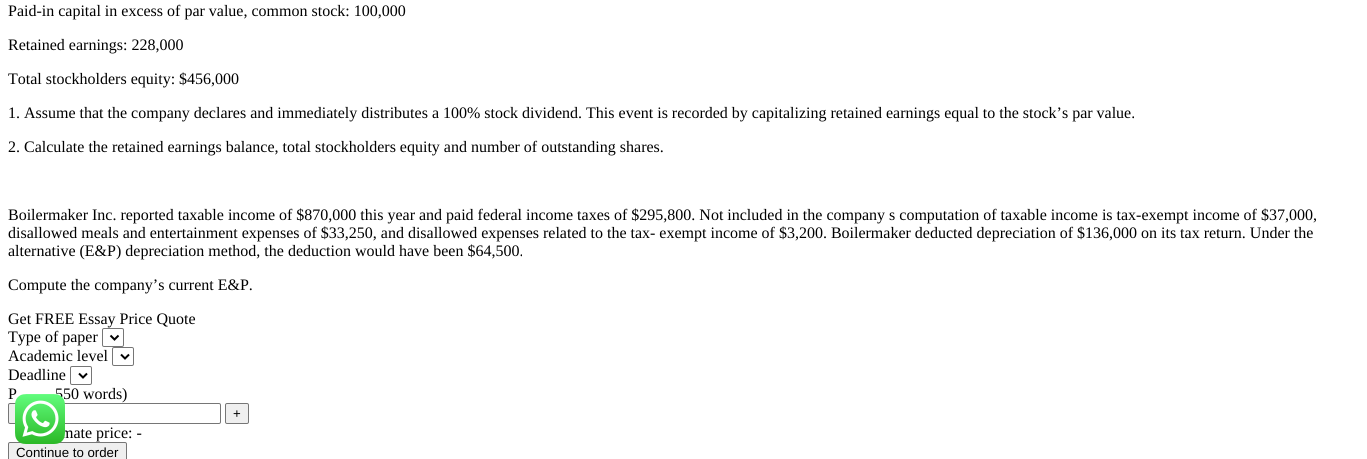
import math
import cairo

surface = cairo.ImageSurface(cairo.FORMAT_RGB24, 1367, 459)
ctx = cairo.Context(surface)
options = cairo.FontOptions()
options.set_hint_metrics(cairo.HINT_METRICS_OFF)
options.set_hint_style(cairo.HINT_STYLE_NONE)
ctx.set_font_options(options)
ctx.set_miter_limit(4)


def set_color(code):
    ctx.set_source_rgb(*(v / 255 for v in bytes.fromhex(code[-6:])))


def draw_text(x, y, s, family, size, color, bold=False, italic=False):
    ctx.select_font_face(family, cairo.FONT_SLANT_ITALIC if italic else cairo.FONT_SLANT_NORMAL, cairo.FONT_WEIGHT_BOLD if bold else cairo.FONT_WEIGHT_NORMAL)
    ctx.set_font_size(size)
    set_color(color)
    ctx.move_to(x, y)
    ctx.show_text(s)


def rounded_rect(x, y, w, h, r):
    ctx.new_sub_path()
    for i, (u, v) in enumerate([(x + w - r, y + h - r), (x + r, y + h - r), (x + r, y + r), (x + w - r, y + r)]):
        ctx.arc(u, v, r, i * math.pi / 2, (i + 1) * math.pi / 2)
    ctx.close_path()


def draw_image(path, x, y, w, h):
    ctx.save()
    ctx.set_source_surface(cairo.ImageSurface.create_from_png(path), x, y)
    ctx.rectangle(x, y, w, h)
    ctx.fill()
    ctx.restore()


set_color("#ffffff")
ctx.paint()
draw_text(8, 16, "Paid-in capital in excess of par value, common stock: 100,000", "Liberation Serif", 16, "#000000")
draw_text(8, 50, "Retained earnings: 228,000", "Liberation Serif", 16, "#000000")
draw_text(8, 84, "Total stockholders equity: $456,000", "Liberation Serif", 16, "#000000")
draw_text(8, 118, "1. Assume that the company declares and immediately distributes a 100% stock dividend. This event is recorded by capitalizing retained earnings equal to the stock’s par value.", "Liberation Serif", 16, "#000000")
draw_text(8, 152, "2. Calculate the retained earnings balance, total stockholders equity and number of outstanding shares.", "Liberation Serif", 16, "#000000")
draw_text(8, 220, "Boilermaker Inc. reported taxable income of $870,000 this year and paid federal income taxes of $295,800. Not included in the company s computation of taxable income is tax-exempt income of $37,000,", "Liberation Serif", 16, "#000000")
draw_text(8, 238, "disallowed meals and entertainment expenses of $33,250, and disallowed expenses related to the tax- exempt income of $3,200. Boilermaker deducted depreciation of $136,000 on its tax return. Under the", "Liberation Serif", 16, "#000000")
draw_text(8, 256, "alternative (E&P) depreciation method, the deduction would have been $64,500.", "Liberation Serif", 16, "#000000")
draw_text(8, 290, "Compute the company’s current E&P.", "Liberation Serif", 16, "#000000")
draw_text(8, 324, "Get FREE Essay Price Quote", "Liberation Serif", 16, "#000000")
draw_text(8, 342, "Type of paper", "Liberation Serif", 16, "#000000")
rounded_rect(102.5, 328.5, 21, 18, 1.5)
set_color("#767676")
ctx.set_line_width(1)
ctx.stroke()
ctx.new_path()
ctx.move_to(110.5, 335.5)
ctx.line_to(114.5, 339.5)
ctx.line_to(118.5, 335.5)
set_color("#000000")
ctx.set_line_width(2)
ctx.stroke()
draw_text(8, 361, "Academic level", "Liberation Serif", 16, "#000000")
rounded_rect(112.5, 347.5, 21, 18, 1.5)
set_color("#767676")
ctx.set_line_width(1)
ctx.stroke()
ctx.new_path()
ctx.move_to(121, 354.5)
ctx.line_to(125, 358.5)
ctx.line_to(129, 354.5)
set_color("#000000")
ctx.set_line_width(2)
ctx.stroke()
draw_text(8, 380, "Deadline", "Liberation Serif", 16, "#000000")
rounded_rect(70.5, 366.5, 21, 18, 1.5)
set_color("#767676")
ctx.set_line_width(1)
ctx.stroke()
ctx.new_path()
ctx.move_to(79, 373.5)
ctx.line_to(83, 377.5)
ctx.line_to(87, 373.5)
set_color("#000000")
ctx.set_line_width(2)
ctx.stroke()
draw_text(8, 399, "P", "Liberation Serif", 16, "#000000")
draw_text(55, 399, "550 words)", "Liberation Serif", 16, "#000000")
set_color("#efefef")
rounded_rect(8.5, 403.5, 23, 20, 1.5)
ctx.fill_preserve()
set_color("#767676")
ctx.set_line_width(1)
ctx.stroke()
rounded_rect(36.5, 403.5, 184, 20, 1.5)
ctx.stroke()
set_color("#efefef")
rounded_rect(225.5, 403.5, 23, 20, 1.5)
ctx.fill_preserve()
set_color("#767676")
ctx.stroke()
draw_text(233, 418, "+", "Liberation Sans", 13.25, "#000000")
draw_text(61, 438, "mate price: -", "Liberation Serif", 16, "#000000")
set_color("#efefef")
rounded_rect(8.5, 442.5, 118, 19, 1.5)
ctx.fill_preserve()
set_color("#767676")
ctx.stroke()
draw_text(16, 457, "Continue to order", "Liberation Sans", 13.25, "#000000")
draw_image("assets/img1.png", 15, 394, 50, 50)
surface.write_to_png("output.png")
